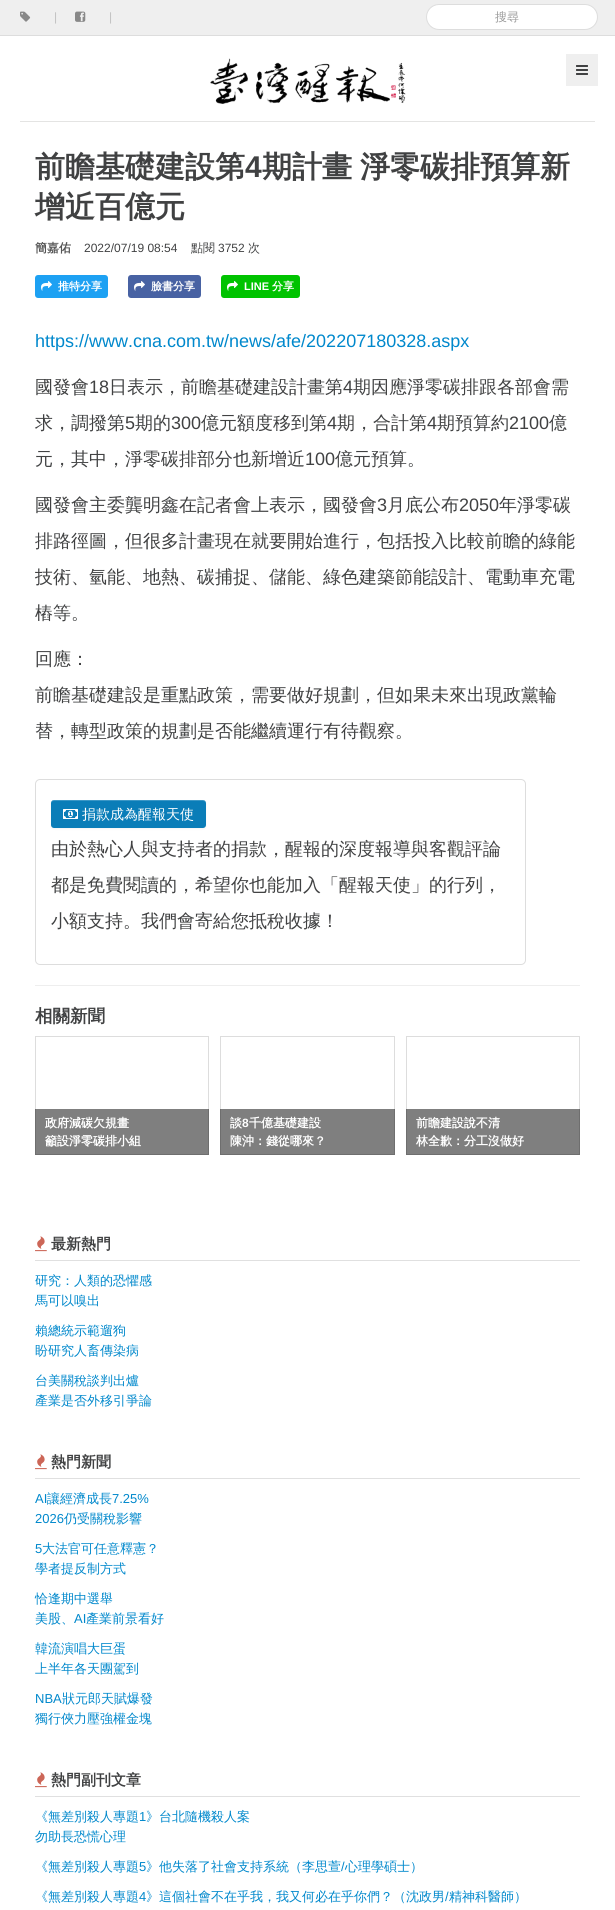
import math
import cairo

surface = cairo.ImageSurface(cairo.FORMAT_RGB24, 615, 1910)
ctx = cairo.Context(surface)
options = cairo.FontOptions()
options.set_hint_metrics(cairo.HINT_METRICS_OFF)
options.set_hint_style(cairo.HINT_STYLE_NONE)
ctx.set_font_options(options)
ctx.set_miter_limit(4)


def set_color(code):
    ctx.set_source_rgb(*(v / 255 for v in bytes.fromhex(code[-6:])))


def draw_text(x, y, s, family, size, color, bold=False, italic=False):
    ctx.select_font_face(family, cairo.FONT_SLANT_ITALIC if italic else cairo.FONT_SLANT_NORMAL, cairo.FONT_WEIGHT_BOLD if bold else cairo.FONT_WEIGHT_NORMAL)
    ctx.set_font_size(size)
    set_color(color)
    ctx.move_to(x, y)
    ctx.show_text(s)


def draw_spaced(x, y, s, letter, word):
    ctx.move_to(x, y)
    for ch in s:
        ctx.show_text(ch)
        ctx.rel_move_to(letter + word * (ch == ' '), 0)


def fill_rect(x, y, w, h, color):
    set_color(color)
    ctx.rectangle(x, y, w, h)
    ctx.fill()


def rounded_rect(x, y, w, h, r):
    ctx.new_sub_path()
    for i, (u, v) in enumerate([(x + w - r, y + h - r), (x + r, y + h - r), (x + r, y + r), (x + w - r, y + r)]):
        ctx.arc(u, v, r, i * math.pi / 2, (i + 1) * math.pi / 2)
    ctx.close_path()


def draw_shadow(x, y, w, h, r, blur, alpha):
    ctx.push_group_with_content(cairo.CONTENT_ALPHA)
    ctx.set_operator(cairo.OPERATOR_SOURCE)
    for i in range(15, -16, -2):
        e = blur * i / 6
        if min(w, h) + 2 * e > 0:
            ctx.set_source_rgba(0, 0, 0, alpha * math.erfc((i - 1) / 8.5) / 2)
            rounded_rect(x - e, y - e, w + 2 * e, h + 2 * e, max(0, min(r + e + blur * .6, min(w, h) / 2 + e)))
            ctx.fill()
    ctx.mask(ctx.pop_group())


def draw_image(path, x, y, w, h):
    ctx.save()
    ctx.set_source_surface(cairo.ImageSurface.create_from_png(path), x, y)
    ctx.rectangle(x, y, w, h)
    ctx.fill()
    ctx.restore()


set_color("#ffffff")
ctx.paint()
fill_rect(20, 121, 575, 1, "#e4e4e3")
fill_rect(0, 0, 615, 35, "#efefef")
fill_rect(0, 35, 615, 1, "#dddddd")
draw_image("assets/img1.png", 20, 11, 11, 11)
draw_text(54, 21, "|", "Liberation Sans", 12, "#c0c0c0")
draw_image("assets/img2.png", 75, 11, 11, 11)
draw_text(109, 21, "|", "Liberation Sans", 12, "#c0c0c0")
set_color("#ffffff")
rounded_rect(426.5, 4.5, 171, 25, 12.5)
ctx.fill_preserve()
set_color("#dddddd")
ctx.set_line_width(1)
ctx.stroke()
draw_text(495, 21, "搜尋", "WenQuanYi Zen Hei Medium", 12, "#999999")
draw_image("assets/img3.png", 210, 58, 196, 46)
fill_rect(566, 54, 32, 32, "#efefef")
draw_image("assets/img4.png", 576, 65, 12, 10)
draw_text(35, 177, "前瞻基礎建設第", "WenQuanYi Zen Hei", 30, "#404142", bold=True)
draw_text(245, 177, "4", "Liberation Sans", 30, "#404142", bold=True)
ctx.select_font_face("WenQuanYi Zen Hei", cairo.FONT_SLANT_NORMAL, cairo.FONT_WEIGHT_BOLD)
draw_spaced(262, 177, "期計畫 淨零碳排預算新", 0, -1)
draw_text(35, 217, "增近百億元", "WenQuanYi Zen Hei", 30, "#404142", bold=True)
draw_text(35, 252, "簡嘉佑", "WenQuanYi Zen Hei", 12, "#555555", bold=True)
draw_text(84, 252, "2022/07/19 08:54", "Liberation Sans", 12, "#404142")
draw_text(191, 252, "點閱", "WenQuanYi Zen Hei Medium", 12, "#404142")
draw_text(218, 252, "3752", "Liberation Sans", 12, "#404142")
draw_text(248, 252, "次", "WenQuanYi Zen Hei Medium", 12, "#404142")
set_color("#1da1f3")
rounded_rect(35, 275, 73, 23, 3)
ctx.fill()
draw_image("assets/img5.png", 41, 281, 11, 10)
draw_text(58, 290, "推特分享", "WenQuanYi Zen Hei", 11, "#ffffff", bold=True)
set_color("#4862a3")
rounded_rect(128, 275, 73, 23, 3)
ctx.fill()
draw_image("assets/img6.png", 134, 281, 11, 10)
draw_text(151, 290, "臉書分享", "WenQuanYi Zen Hei", 11, "#ffffff", bold=True)
set_color("#00c300")
rounded_rect(221, 275, 79, 23, 3)
ctx.fill()
draw_image("assets/img7.png", 227, 281, 11, 10)
draw_text(244, 290, "LINE", "Liberation Sans", 11, "#ffffff", bold=True)
draw_text(272, 290, "分享", "WenQuanYi Zen Hei", 11, "#ffffff", bold=True)
draw_text(35, 347, "https://www.cna.com.tw/news/afe/202207180328.aspx", "Liberation Sans", 18, "#0088cc")
draw_text(35, 393, "國發會", "WenQuanYi Zen Hei Medium", 18, "#404142")
draw_text(89, 393, "18", "Liberation Sans", 18, "#404142")
draw_text(109, 393, "日表示，前瞻基礎建設計畫第", "WenQuanYi Zen Hei Medium", 18, "#404142")
draw_text(343, 393, "4", "Liberation Sans", 18, "#404142")
draw_text(353, 393, "期因應淨零碳排跟各部會需", "WenQuanYi Zen Hei Medium", 18, "#404142")
draw_text(35, 429, "求，調撥第", "WenQuanYi Zen Hei Medium", 18, "#404142")
draw_text(125, 429, "5", "Liberation Sans", 18, "#404142")
draw_text(135, 429, "期的", "WenQuanYi Zen Hei Medium", 18, "#404142")
draw_text(171, 429, "300", "Liberation Sans", 18, "#404142")
draw_text(201, 429, "億元額度移到第", "WenQuanYi Zen Hei Medium", 18, "#404142")
draw_text(327, 429, "4", "Liberation Sans", 18, "#404142")
draw_text(337, 429, "期，合計第", "WenQuanYi Zen Hei Medium", 18, "#404142")
draw_text(427, 429, "4", "Liberation Sans", 18, "#404142")
draw_text(437, 429, "期預算約", "WenQuanYi Zen Hei Medium", 18, "#404142")
draw_text(509, 429, "2100", "Liberation Sans", 18, "#404142")
draw_text(549, 429, "億", "WenQuanYi Zen Hei Medium", 18, "#404142")
draw_text(35, 465, "元，其中，淨零碳排部分也新增近", "WenQuanYi Zen Hei Medium", 18, "#404142")
draw_text(305, 465, "100", "Liberation Sans", 18, "#404142")
draw_text(335, 465, "億元預算。", "WenQuanYi Zen Hei Medium", 18, "#404142")
draw_text(35, 511, "國發會主委龔明鑫在記者會上表示，國發會", "WenQuanYi Zen Hei Medium", 18, "#404142")
draw_text(377, 511, "3", "Liberation Sans", 18, "#404142")
draw_text(387, 511, "月底公布", "WenQuanYi Zen Hei Medium", 18, "#404142")
draw_text(459, 511, "2050", "Liberation Sans", 18, "#404142")
draw_text(499, 511, "年淨零碳", "WenQuanYi Zen Hei Medium", 18, "#404142")
draw_text(35, 547, "排路徑圖，但很多計畫現在就要開始進行，包括投入比較前瞻的綠能", "WenQuanYi Zen Hei Medium", 18, "#404142")
draw_text(35, 583, "技術、氫能、地熱、碳捕捉、儲能、綠色建築節能設計、電動車充電", "WenQuanYi Zen Hei Medium", 18, "#404142")
draw_text(35, 619, "樁等。", "WenQuanYi Zen Hei Medium", 18, "#404142")
draw_text(35, 665, "回應：", "WenQuanYi Zen Hei Medium", 18, "#404142")
draw_text(35, 701, "前瞻基礎建設是重點政策，需要做好規劃，但如果未來出現政黨輪", "WenQuanYi Zen Hei Medium", 18, "#404142")
draw_text(35, 737, "替，轉型政策的規劃是否能繼續運行有待觀察。", "WenQuanYi Zen Hei Medium", 18, "#404142")
rounded_rect(35.5, 779.5, 490, 185, 4.5)
set_color("#dddddd")
ctx.stroke()
set_color("#000000")
draw_shadow(51, 801, 155, 28, 3, 1, 0.05)
set_color("#0a7db8")
rounded_rect(51, 800, 155, 28, 3)
ctx.fill()
ctx.set_source_rgba(1, 1, 1, 0.2)
ctx.new_path()
ctx.move_to(54, 801)
ctx.line_to(203, 801)
ctx.curve_to(205, 801, 206, 802, 206, 804)
ctx.curve_to(206, 802, 206, 801, 204, 800)
ctx.line_to(79, 800)
ctx.curve_to(71, 800, 51, 795, 51, 804)
ctx.curve_to(51, 802, 52, 801, 54, 801)
ctx.close_path()
ctx.fill()
draw_image("assets/img8.png", 63, 809, 15, 10)
draw_text(82, 819, "捐款成為醒報天使", "WenQuanYi Zen Hei Medium", 14, "#ffffff")
draw_text(51, 855, "由於熱心人與支持者的捐款，醒報的深度報導與客觀評論", "WenQuanYi Zen Hei Medium", 18, "#404142")
draw_text(51, 891, "都是免費閱讀的，希望你也能加入「醒報天使」的行列，", "WenQuanYi Zen Hei Medium", 18, "#404142")
draw_text(51, 927, "小額支持。我們會寄給您抵稅收據！", "WenQuanYi Zen Hei Medium", 18, "#404142")
fill_rect(35, 985, 545, 1, "#eeeeee")
draw_text(35, 1022, "相關新聞", "WenQuanYi Zen Hei", 17.5, "#404142", bold=True)
ctx.rectangle(35.5, 1036.5, 173, 118)
set_color("#dddddd")
ctx.stroke()
ctx.set_source_rgba(0, 0, 0, 0.5)
ctx.rectangle(35, 1109, 174, 46)
ctx.fill()
draw_text(45, 1127, "政府減碳欠規畫", "WenQuanYi Zen Hei", 12, "#ffffff", bold=True)
draw_text(45, 1145, "籲設淨零碳排小組", "WenQuanYi Zen Hei", 12, "#ffffff", bold=True)
ctx.rectangle(220.5, 1036.5, 174, 118)
set_color("#dddddd")
ctx.stroke()
ctx.set_source_rgba(0, 0, 0, 0.5)
ctx.rectangle(220, 1109, 175, 46)
ctx.fill()
draw_text(230, 1127, "談", "WenQuanYi Zen Hei", 12, "#ffffff", bold=True)
draw_text(242, 1127, "8", "Liberation Sans", 12, "#ffffff", bold=True)
draw_text(249, 1127, "千億基礎建設", "WenQuanYi Zen Hei", 12, "#ffffff", bold=True)
draw_text(230, 1145, "陳沖：錢從哪來？", "WenQuanYi Zen Hei", 12, "#ffffff", bold=True)
ctx.rectangle(406.5, 1036.5, 173, 118)
set_color("#dddddd")
ctx.stroke()
ctx.set_source_rgba(0, 0, 0, 0.5)
ctx.rectangle(406, 1109, 174, 46)
ctx.fill()
draw_text(416, 1127, "前瞻建設說不清", "WenQuanYi Zen Hei", 12, "#ffffff", bold=True)
draw_text(416, 1145, "林全歉：分工沒做好", "WenQuanYi Zen Hei", 12, "#ffffff", bold=True)
fill_rect(35, 1260, 545, 1, "#e0e0e0")
draw_image("assets/img9.png", 35, 1236, 12, 16)
draw_text(51, 1249, "最新熱門", "WenQuanYi Zen Hei", 15, "#404142", bold=True)
draw_text(35, 1285, "研究：人類的恐懼感", "WenQuanYi Zen Hei Medium", 13, "#0088cc")
draw_text(35, 1305, "馬可以嗅出", "WenQuanYi Zen Hei Medium", 13, "#0088cc")
draw_text(35, 1335, "賴總統示範遛狗", "WenQuanYi Zen Hei Medium", 13, "#0088cc")
draw_text(35, 1355, "盼研究人畜傳染病", "WenQuanYi Zen Hei Medium", 13, "#0088cc")
draw_text(35, 1385, "台美關稅談判出爐", "WenQuanYi Zen Hei Medium", 13, "#0088cc")
draw_text(35, 1405, "產業是否外移引爭論", "WenQuanYi Zen Hei Medium", 13, "#0088cc")
fill_rect(35, 1478, 545, 1, "#e0e0e0")
draw_image("assets/img9.png", 35, 1454, 12, 16)
draw_text(51, 1467, "熱門新聞", "WenQuanYi Zen Hei", 15, "#404142", bold=True)
draw_text(35, 1503, "AI", "Liberation Sans", 13, "#0088cc")
draw_text(47, 1503, "讓經濟成長", "WenQuanYi Zen Hei Medium", 13, "#0088cc")
draw_text(112, 1503, "7.25%", "Liberation Sans", 13, "#0088cc")
draw_text(35, 1523, "2026", "Liberation Sans", 13, "#0088cc")
draw_text(64, 1523, "仍受關稅影響", "WenQuanYi Zen Hei Medium", 13, "#0088cc")
draw_text(35, 1553, "5", "Liberation Sans", 13, "#0088cc")
draw_text(42, 1553, "大法官可任意釋憲？", "WenQuanYi Zen Hei Medium", 13, "#0088cc")
draw_text(35, 1573, "學者提反制方式", "WenQuanYi Zen Hei Medium", 13, "#0088cc")
draw_text(35, 1603, "恰逢期中選舉", "WenQuanYi Zen Hei Medium", 13, "#0088cc")
draw_text(35, 1623, "美股、", "WenQuanYi Zen Hei Medium", 13, "#0088cc")
draw_text(74, 1623, "AI", "Liberation Sans", 13, "#0088cc")
draw_text(86, 1623, "產業前景看好", "WenQuanYi Zen Hei Medium", 13, "#0088cc")
draw_text(35, 1653, "韓流演唱大巨蛋", "WenQuanYi Zen Hei Medium", 13, "#0088cc")
draw_text(35, 1673, "上半年各天團駕到", "WenQuanYi Zen Hei Medium", 13, "#0088cc")
draw_text(35, 1703, "NBA", "Liberation Sans", 13, "#0088cc")
draw_text(62, 1703, "狀元郎天賦爆發", "WenQuanYi Zen Hei Medium", 13, "#0088cc")
draw_text(35, 1723, "獨行俠力壓強權金塊", "WenQuanYi Zen Hei Medium", 13, "#0088cc")
fill_rect(35, 1796, 545, 1, "#e0e0e0")
draw_image("assets/img9.png", 35, 1772, 12, 16)
draw_text(51, 1785, "熱門副刊文章", "WenQuanYi Zen Hei", 15, "#404142", bold=True)
draw_text(35, 1821, "《無差別殺人專題", "WenQuanYi Zen Hei Medium", 13, "#0088cc")
draw_text(139, 1821, "1", "Liberation Sans", 13, "#0088cc")
draw_text(146, 1821, "》台北隨機殺人案", "WenQuanYi Zen Hei Medium", 13, "#0088cc")
draw_text(35, 1841, "勿助長恐慌心理", "WenQuanYi Zen Hei Medium", 13, "#0088cc")
draw_text(35, 1871, "《無差別殺人專題", "WenQuanYi Zen Hei Medium", 13, "#0088cc")
draw_text(139, 1871, "5", "Liberation Sans", 13, "#0088cc")
draw_text(146, 1871, "》他失落了社會支持系統（李思萱", "WenQuanYi Zen Hei Medium", 13, "#0088cc")
draw_text(341, 1871, "/", "Liberation Sans", 13, "#0088cc")
draw_text(345, 1871, "心理學碩士）", "WenQuanYi Zen Hei Medium", 13, "#0088cc")
draw_text(35, 1901, "《無差別殺人專題", "WenQuanYi Zen Hei Medium", 13, "#0088cc")
draw_text(139, 1901, "4", "Liberation Sans", 13, "#0088cc")
draw_text(146, 1901, "》這個社會不在乎我，我又何必在乎你們？（沈政男", "WenQuanYi Zen Hei Medium", 13, "#0088cc")
draw_text(445, 1901, "/", "Liberation Sans", 13, "#0088cc")
draw_text(449, 1901, "精神科醫師）", "WenQuanYi Zen Hei Medium", 13, "#0088cc")
surface.write_to_png("output.png")
